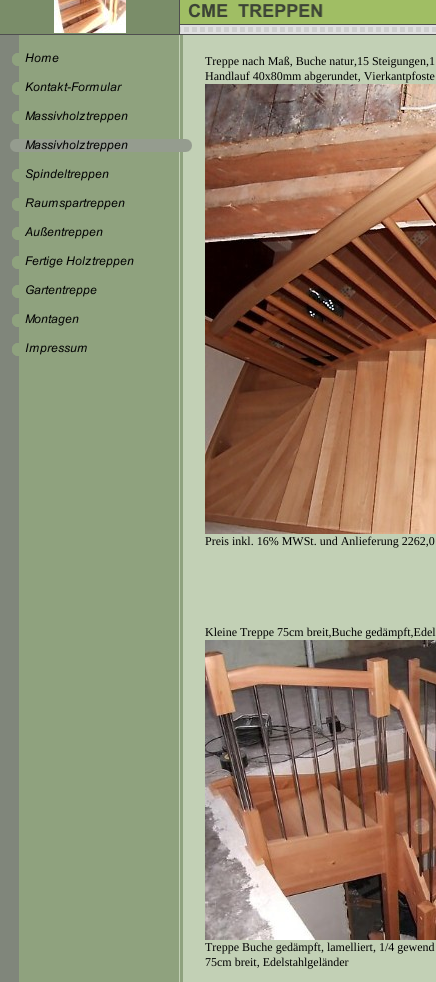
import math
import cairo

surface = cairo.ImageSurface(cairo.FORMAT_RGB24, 436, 982)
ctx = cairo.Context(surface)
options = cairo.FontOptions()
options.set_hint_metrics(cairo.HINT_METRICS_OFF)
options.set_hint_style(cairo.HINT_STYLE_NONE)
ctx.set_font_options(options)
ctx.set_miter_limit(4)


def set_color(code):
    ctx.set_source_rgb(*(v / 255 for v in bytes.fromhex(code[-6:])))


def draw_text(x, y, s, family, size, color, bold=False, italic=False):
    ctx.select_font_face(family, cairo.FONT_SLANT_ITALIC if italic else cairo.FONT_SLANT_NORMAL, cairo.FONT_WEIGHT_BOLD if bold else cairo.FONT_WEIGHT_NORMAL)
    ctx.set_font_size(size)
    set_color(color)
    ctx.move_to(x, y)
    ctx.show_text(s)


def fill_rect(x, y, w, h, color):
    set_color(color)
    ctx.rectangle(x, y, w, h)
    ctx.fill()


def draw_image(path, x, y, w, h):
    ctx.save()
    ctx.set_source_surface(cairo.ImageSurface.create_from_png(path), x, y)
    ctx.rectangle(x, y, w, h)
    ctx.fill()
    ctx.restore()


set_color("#dfdfdf")
ctx.paint()
draw_image("assets/img1.png", 180, 0, 256, 32)
fill_rect(0, 0, 179, 34, "#7a8d69")
draw_image("assets/img2.png", 54, 0, 72, 33)
fill_rect(179, 0, 1, 34, "#4f4f4f")
draw_image("assets/img3.png", 188, 3, 135, 15)
fill_rect(0, 34, 436, 1, "#4f4f4f")
draw_image("assets/img4.png", 0, 35, 193, 947)
draw_image("assets/img5.png", 12, 53, 47, 13)
draw_image("assets/img6.png", 12, 82, 110, 13)
draw_image("assets/img7.png", 12, 111, 116, 13)
draw_image("assets/img8.png", 10, 139, 182, 13)
draw_image("assets/img9.png", 12, 169, 97, 13)
draw_image("assets/img10.png", 12, 198, 113, 13)
draw_image("assets/img11.png", 12, 227, 91, 13)
draw_image("assets/img12.png", 12, 256, 122, 13)
draw_image("assets/img13.png", 12, 285, 85, 13)
draw_image("assets/img14.png", 12, 314, 67, 13)
draw_image("assets/img15.png", 12, 343, 75, 13)
fill_rect(193, 35, 243, 947, "#c2d0b5")
draw_text(205, 65, "Treppe nach Maß, Buche natur,15 Steigungen,1", "Liberation Serif", 12, "#000000")
draw_text(205, 80, "Handlauf 40x80mm abgerundet, Vierkantpfoste", "Liberation Serif", 12, "#000000")
draw_image("assets/img16.png", 205, 84, 231, 450)
draw_text(205, 545, "Preis inkl. 16% MWSt. und Anlieferung 2262,0", "Liberation Serif", 12, "#000000")
draw_text(205, 636, "Kleine Treppe 75cm breit,Buche gedämpft,Edel", "Liberation Serif", 12, "#000000")
draw_image("assets/img17.png", 205, 640, 231, 300)
draw_text(205, 951, "Treppe Buche gedämpft, lamelliert, 1/4 gewend", "Liberation Serif", 12, "#000000")
draw_text(205, 966, "75cm breit, Edelstahlgeländer", "Liberation Serif", 12, "#000000")
surface.write_to_png("output.png")
